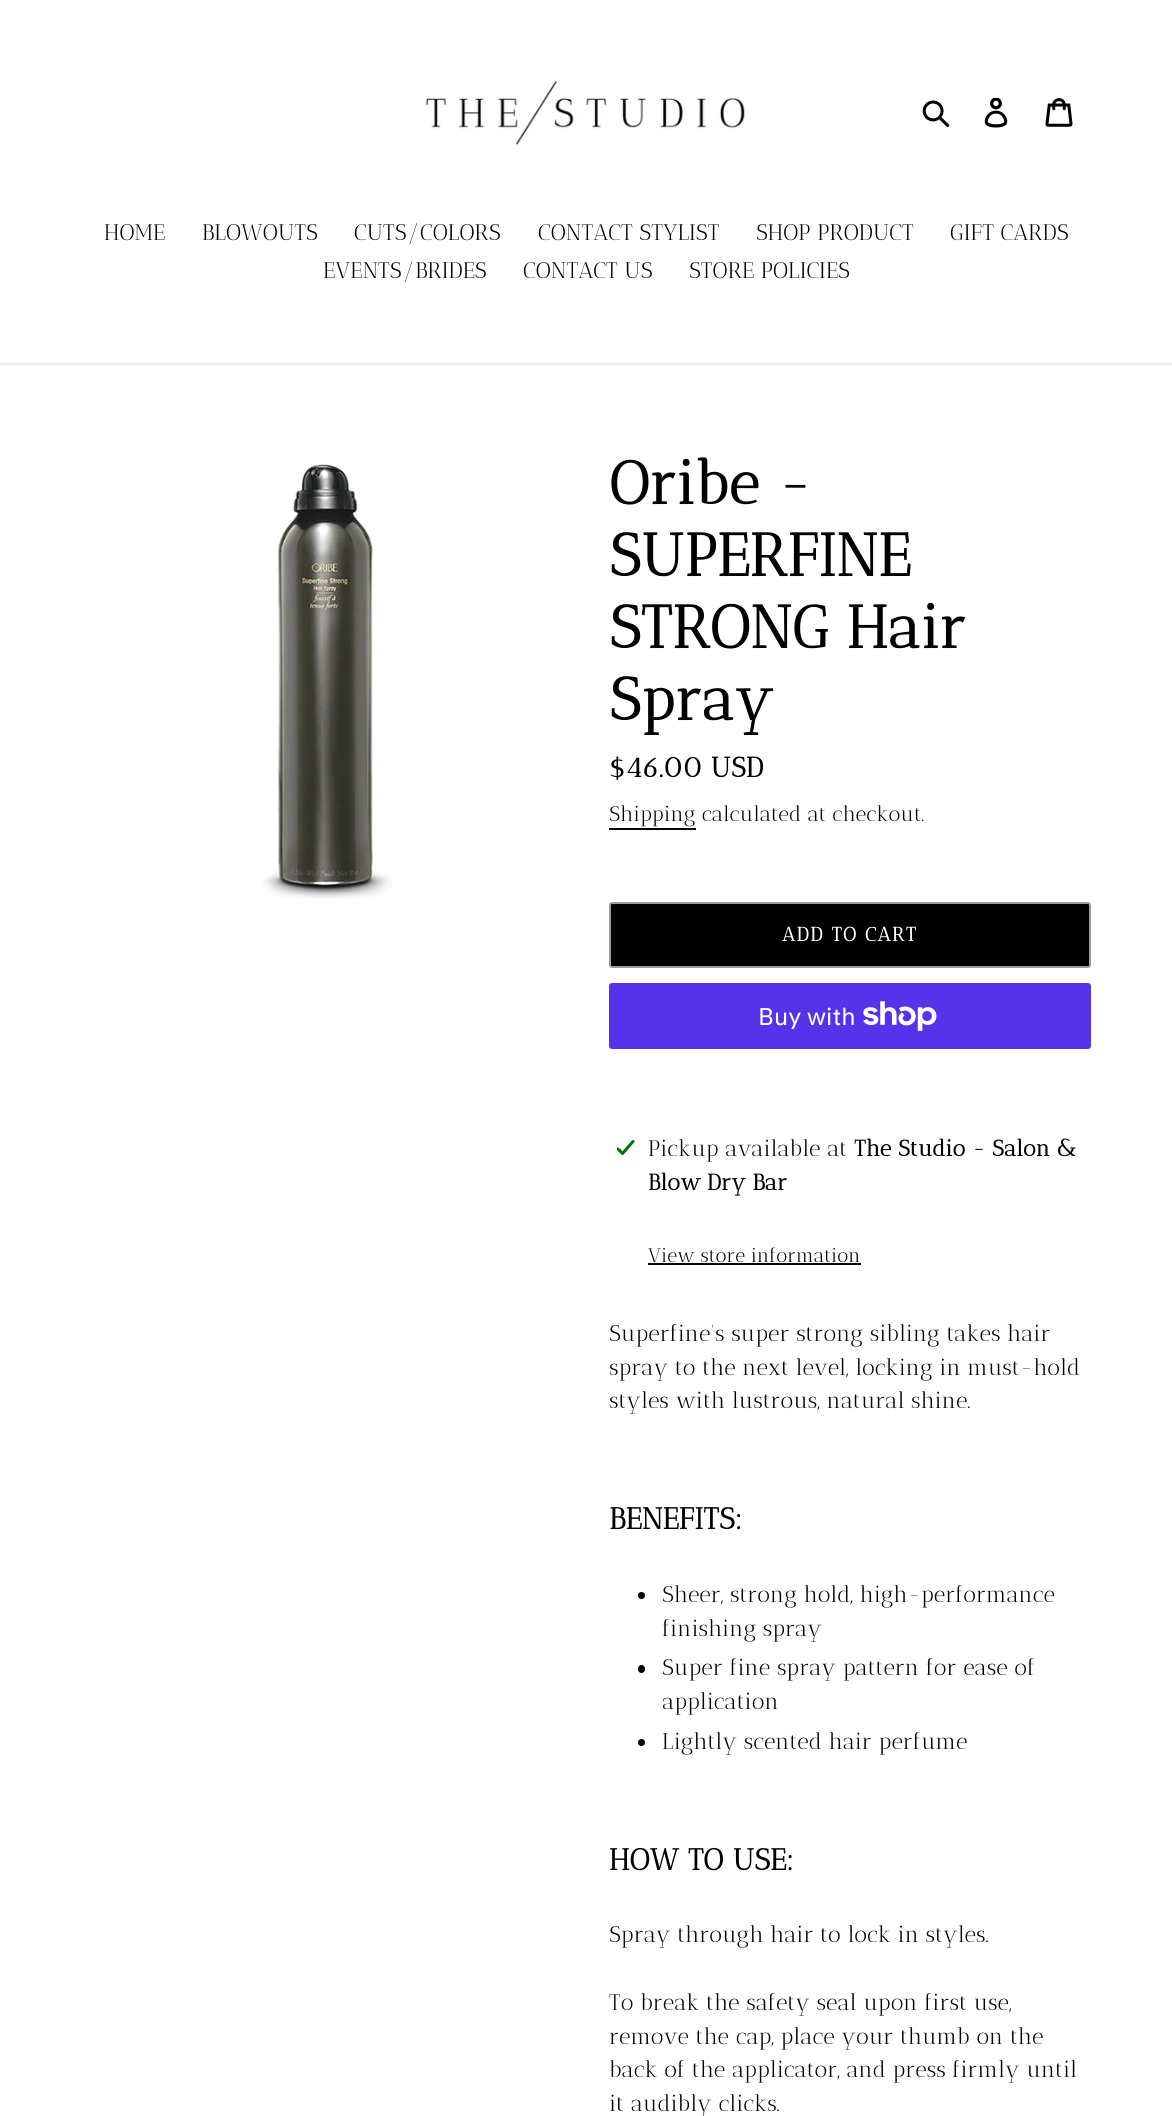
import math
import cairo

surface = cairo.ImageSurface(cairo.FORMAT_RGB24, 1172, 2116)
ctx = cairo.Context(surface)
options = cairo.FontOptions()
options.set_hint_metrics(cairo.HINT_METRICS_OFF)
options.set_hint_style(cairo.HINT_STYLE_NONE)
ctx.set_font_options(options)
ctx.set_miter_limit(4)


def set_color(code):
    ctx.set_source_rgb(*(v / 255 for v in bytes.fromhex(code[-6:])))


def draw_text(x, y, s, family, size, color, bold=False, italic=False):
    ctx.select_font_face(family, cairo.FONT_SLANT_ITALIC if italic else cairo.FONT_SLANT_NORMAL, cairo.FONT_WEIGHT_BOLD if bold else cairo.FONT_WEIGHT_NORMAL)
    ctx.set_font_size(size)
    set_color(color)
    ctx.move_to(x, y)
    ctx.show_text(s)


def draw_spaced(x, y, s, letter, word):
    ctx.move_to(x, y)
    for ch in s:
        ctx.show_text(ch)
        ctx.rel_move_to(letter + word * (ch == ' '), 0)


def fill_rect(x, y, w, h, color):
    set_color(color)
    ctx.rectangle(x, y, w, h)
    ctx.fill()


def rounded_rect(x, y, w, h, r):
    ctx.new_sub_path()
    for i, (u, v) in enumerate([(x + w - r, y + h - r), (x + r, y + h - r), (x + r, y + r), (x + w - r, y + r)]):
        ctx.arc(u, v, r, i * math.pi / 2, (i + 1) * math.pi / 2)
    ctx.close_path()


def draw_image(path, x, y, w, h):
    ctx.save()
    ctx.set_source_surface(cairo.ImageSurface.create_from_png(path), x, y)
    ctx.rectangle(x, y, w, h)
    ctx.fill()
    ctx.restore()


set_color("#ffffff")
ctx.paint()
draw_image("assets/img1.png", 426, 80, 320, 65)
draw_image("assets/img2.png", 922, 100, 28, 28)
draw_image("assets/img3.png", 984, 98, 24, 30)
draw_image("assets/img4.png", 1045, 98, 28, 29)
fill_rect(0, 363, 1172, 2, "#ebebeb")
draw_text(104, 240, "HOME", "Antic Didone", 22.5, "#000000")
draw_text(202, 240, "BLOWOUTS", "Antic Didone", 22.5, "#000000")
draw_text(354, 240, "CUTS/COLORS", "Antic Didone", 22.5, "#000000")
draw_text(538, 240, "CONTACT STYLIST", "Antic Didone", 22.5, "#000000")
draw_text(756, 240, "SHOP PRODUCT", "Antic Didone", 22.5, "#000000")
draw_text(950, 240, "GIFT CARDS", "Antic Didone", 22.5, "#000000")
draw_text(323, 278, "EVENTS/BRIDES", "Antic Didone", 22.5, "#000000")
draw_text(523, 278, "CONTACT US", "Antic Didone", 22.5, "#000000")
draw_text(689, 278, "STORE POLICIES", "Antic Didone", 22.5, "#000000")
draw_image("assets/img5.png", 263, 464, 129, 435)
draw_text(609, 504, "Oribe -", "Antic Didone", 60, "#000000", bold=True)
draw_text(609, 576, "SUPERFINE", "Antic Didone", 60, "#000000", bold=True)
draw_text(609, 648, "STRONG Hair", "Antic Didone", 60, "#000000", bold=True)
draw_text(609, 720, "Spray", "Antic Didone", 60, "#000000", bold=True)
draw_text(609, 777, "$46.00 USD", "Antic Didone", 28, "#000000", bold=True)
draw_text(609, 821, "Shipping calculated at checkout.", "Antic Didone", 21, "#000000")
fill_rect(609, 828, 87, 2, "#000000")
rounded_rect(610, 903, 480, 64, 2)
ctx.fill_preserve()
set_color("#9c9c9c")
ctx.stroke()
ctx.select_font_face("Antic Didone", cairo.FONT_SLANT_NORMAL, cairo.FONT_WEIGHT_BOLD)
ctx.set_font_size(19.5)
set_color("#ffffff")
draw_spaced(782, 941, "ADD TO CART", 1.5, 0)
set_color("#5433eb")
rounded_rect(609, 983, 482, 66, 3)
ctx.fill()
draw_text(758, 1025, "Buy with", "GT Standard", 24, "#ffffff")
draw_image("assets/img6.png", 863, 1001, 74, 30)
draw_image("assets/img7.png", 617, 1140, 18, 15)
draw_text(648, 1156, "Pickup available at", "Antic Didone", 22.5, "#000000")
draw_text(854, 1156, "The Studio - Salon &", "Antic Didone", 22.5, "#000000", bold=True)
draw_text(648, 1190, "Blow Dry Bar", "Antic Didone", 22.5, "#000000", bold=True)
draw_text(648, 1262, "View store information", "Antic Didone", 19.5, "#000000")
fill_rect(648, 1263, 213, 2, "#000000")
draw_text(609, 1341, "Superfine’s super strong sibling takes hair", "Antic Didone", 22.5, "#000000")
draw_text(609, 1375, "spray to the next level, locking in must-hold", "Antic Didone", 22.5, "#000000")
draw_text(609, 1408, "styles with lustrous, natural shine.", "Antic Didone", 22.5, "#000000")
draw_text(609, 1529, "BENEFITS:", "Antic Didone", 30, "#000000", bold=True)
ctx.new_path()
ctx.arc(641.5, 1595.5, 3.5, 0, 2 * math.pi)
ctx.fill()
draw_text(662, 1602, "Sheer, strong hold, high-performance", "Antic Didone", 22.5, "#000000")
draw_text(662, 1636, "finishing spray", "Antic Didone", 22.5, "#000000")
rounded_rect(638, 1665, 7, 8, 3.5)
ctx.fill()
draw_text(662, 1675, "Super fine spray pattern for ease of", "Antic Didone", 22.5, "#000000")
draw_text(662, 1709, "application", "Antic Didone", 22.5, "#000000")
ctx.new_path()
ctx.arc(641.5, 1742.5, 3.5, 0, 2 * math.pi)
ctx.fill()
draw_text(662, 1749, "Lightly scented hair perfume", "Antic Didone", 22.5, "#000000")
draw_text(609, 1870, "HOW TO USE:", "Antic Didone", 30, "#000000", bold=True)
draw_text(609, 1942, "Spray through hair to lock in styles.", "Antic Didone", 22.5, "#000000")
draw_text(609, 2010, "To break the safety seal upon first use,", "Antic Didone", 22.5, "#000000")
draw_text(609, 2044, "remove the cap, place your thumb on the", "Antic Didone", 22.5, "#000000")
draw_text(609, 2077, "back of the applicator, and press firmly until", "Antic Didone", 22.5, "#000000")
draw_text(609, 2111, "it audibly clicks.", "Antic Didone", 22.5, "#000000")
surface.write_to_png("output.png")
